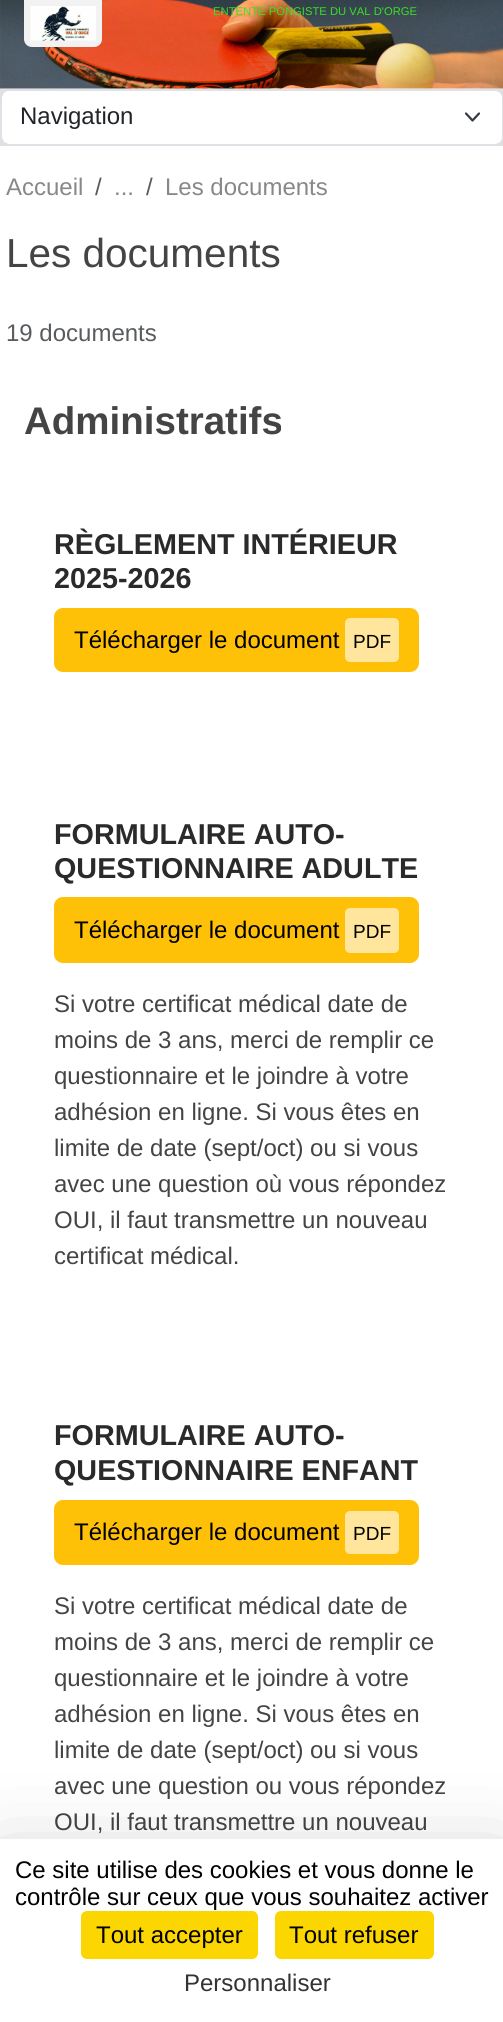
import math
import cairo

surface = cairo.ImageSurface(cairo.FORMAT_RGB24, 503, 2022)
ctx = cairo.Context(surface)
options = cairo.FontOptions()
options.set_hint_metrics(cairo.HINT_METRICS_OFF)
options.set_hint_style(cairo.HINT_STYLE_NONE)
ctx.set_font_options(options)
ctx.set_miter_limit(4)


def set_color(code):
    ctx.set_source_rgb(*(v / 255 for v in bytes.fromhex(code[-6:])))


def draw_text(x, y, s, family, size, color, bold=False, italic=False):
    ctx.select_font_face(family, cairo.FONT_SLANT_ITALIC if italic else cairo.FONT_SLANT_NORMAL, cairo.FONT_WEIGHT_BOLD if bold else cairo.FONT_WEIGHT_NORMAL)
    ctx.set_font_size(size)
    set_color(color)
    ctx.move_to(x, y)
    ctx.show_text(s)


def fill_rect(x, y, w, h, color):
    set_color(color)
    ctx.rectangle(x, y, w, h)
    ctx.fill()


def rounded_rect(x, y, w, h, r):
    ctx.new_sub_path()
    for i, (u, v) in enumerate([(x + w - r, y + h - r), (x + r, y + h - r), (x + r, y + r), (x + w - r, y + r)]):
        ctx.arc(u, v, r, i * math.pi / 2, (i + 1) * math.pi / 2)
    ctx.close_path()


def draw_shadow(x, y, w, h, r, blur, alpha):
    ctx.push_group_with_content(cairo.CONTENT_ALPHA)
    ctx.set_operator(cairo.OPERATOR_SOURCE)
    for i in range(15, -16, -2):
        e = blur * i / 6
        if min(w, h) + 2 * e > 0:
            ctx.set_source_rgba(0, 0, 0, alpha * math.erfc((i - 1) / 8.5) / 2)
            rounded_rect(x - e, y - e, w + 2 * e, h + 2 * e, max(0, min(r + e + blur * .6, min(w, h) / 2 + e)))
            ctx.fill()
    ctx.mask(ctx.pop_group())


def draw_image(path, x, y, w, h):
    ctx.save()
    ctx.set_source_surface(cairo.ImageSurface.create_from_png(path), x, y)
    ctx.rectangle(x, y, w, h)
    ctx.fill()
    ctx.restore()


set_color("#ffffff")
ctx.paint()
draw_image("assets/img1.png", 0, 88, 503, 1)
ctx.set_source_rgba(1, 1, 1, 0.5)
ctx.rectangle(0, 88, 503, 1)
ctx.fill()
draw_image("assets/img3.png", 0, 0, 503, 89)
set_color("#f2f2f2")
ctx.new_path()
ctx.move_to(24, 0)
ctx.line_to(102, 0)
ctx.line_to(102, 39)
ctx.curve_to(102, 43.5, 98.5, 47, 94, 47)
ctx.line_to(32, 47)
ctx.curve_to(27.5, 47, 24, 43.5, 24, 39)
ctx.close_path()
ctx.fill()
draw_image("assets/img2.png", 30, 6, 66, 35)
draw_text(213, 15, "ENTENTE PONGISTE DU VAL D'ORGE", "Liberation Sans", 11.25, "#3ade28")
fill_rect(0, 89, 503, 57, "#e0e0e0")
set_color("#ffffff")
rounded_rect(2, 90, 501, 54, 8)
ctx.fill()
ctx.new_path()
ctx.move_to(466, 113.5)
ctx.line_to(472.5, 120.5)
ctx.line_to(479, 113.5)
set_color("#343a40")
ctx.set_line_width(2.2)
ctx.set_line_cap(cairo.LINE_CAP_ROUND)
ctx.set_line_join(cairo.LINE_JOIN_ROUND)
ctx.stroke()
rounded_rect(1, 90, 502, 55, 8)
set_color("#dee2e6")
ctx.set_line_width(2)
ctx.set_line_cap(cairo.LINE_CAP_BUTT)
ctx.set_line_join(cairo.LINE_JOIN_MITER)
ctx.stroke()
draw_text(20, 124, "Navigation", "Liberation Sans", 24, "#212529")
draw_text(6, 195, "Accueil", "Liberation Sans", 24, "#888888")
draw_text(95, 195, "/", "Liberation Sans", 24, "#595c5f")
draw_text(114, 195, "...", "Liberation Sans", 24, "#888888")
draw_text(146, 195, "/", "Liberation Sans", 24, "#595c5f")
draw_text(165, 195, "Les documents", "Liberation Sans", 24, "#888888")
draw_text(6, 267, "Les documents", "Liberation Sans", 40.5, "#444444")
draw_text(6, 341, "19 documents", "Liberation Sans", 24, "#595c5f")
draw_text(24, 434, "Administratifs", "Liberation Sans", 38.5, "#444444", bold=True)
draw_text(54, 554, "RÈGLEMENT INTÉRIEUR", "Liberation Sans", 28.75, "#2a2a2a", bold=True)
draw_text(54, 588, "2025-2026", "Liberation Sans", 28.75, "#2a2a2a", bold=True)
set_color("#ffc107")
rounded_rect(55, 609, 363, 62, 8)
ctx.fill_preserve()
ctx.stroke()
draw_text(74, 648, "Télécharger le document", "Liberation Sans", 24, "#000000")
set_color("#ffe69c")
rounded_rect(345, 618, 54, 44, 5)
ctx.fill()
draw_text(353, 648, "PDF", "Liberation Sans", 19, "#000000")
draw_text(54, 844, "FORMULAIRE AUTO-", "Liberation Sans", 28.75, "#2a2a2a", bold=True)
draw_text(54, 878, "QUESTIONNAIRE ADULTE", "Liberation Sans", 28.75, "#2a2a2a", bold=True)
set_color("#ffc107")
rounded_rect(55, 898, 363, 64, 8)
ctx.fill_preserve()
ctx.stroke()
draw_text(74, 938, "Télécharger le document", "Liberation Sans", 24, "#000000")
set_color("#ffe69c")
rounded_rect(345, 908, 54, 45, 5)
ctx.fill()
draw_text(353, 938, "PDF", "Liberation Sans", 19, "#000000")
draw_text(54, 1012, "Si votre certificat médical date de", "Liberation Sans", 24, "#444444")
draw_text(54, 1048, "moins de 3 ans, merci de remplir ce", "Liberation Sans", 24, "#444444")
draw_text(54, 1084, "questionnaire et le joindre à votre", "Liberation Sans", 24, "#444444")
draw_text(54, 1120, "adhésion en ligne. Si vous êtes en", "Liberation Sans", 24, "#444444")
draw_text(54, 1156, "limite de date (sept/oct) ou si vous", "Liberation Sans", 24, "#444444")
draw_text(54, 1192, "avec une question où vous répondez", "Liberation Sans", 24, "#444444")
draw_text(54, 1228, "OUI, il faut transmettre un nouveau", "Liberation Sans", 24, "#444444")
draw_text(54, 1264, "certificat médical.", "Liberation Sans", 24, "#444444")
draw_text(54, 1445, "FORMULAIRE AUTO-", "Liberation Sans", 28.75, "#2a2a2a", bold=True)
draw_text(54, 1480, "QUESTIONNAIRE ENFANT", "Liberation Sans", 28.75, "#2a2a2a", bold=True)
set_color("#ffc107")
rounded_rect(55, 1501, 363, 63, 8)
ctx.fill_preserve()
ctx.stroke()
draw_text(74, 1540, "Télécharger le document", "Liberation Sans", 24, "#000000")
set_color("#ffe69c")
rounded_rect(345, 1511, 54, 43, 5)
ctx.fill()
draw_text(353, 1540, "PDF", "Liberation Sans", 19, "#000000")
draw_text(54, 1614, "Si votre certificat médical date de", "Liberation Sans", 24, "#444444")
draw_text(54, 1650, "moins de 3 ans, merci de remplir ce", "Liberation Sans", 24, "#444444")
draw_text(54, 1686, "questionnaire et le joindre à votre", "Liberation Sans", 24, "#444444")
draw_text(54, 1722, "adhésion en ligne. Si vous êtes en", "Liberation Sans", 24, "#444444")
draw_text(54, 1758, "limite de date (sept/oct) ou si vous", "Liberation Sans", 24, "#444444")
draw_text(54, 1794, "avec une question ou vous répondez", "Liberation Sans", 24, "#444444")
draw_text(54, 1830, "OUI, il faut transmettre un nouveau", "Liberation Sans", 24, "#444444")
set_color("#000000")
draw_shadow(0, 1869, 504, 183, 0, 45, 0.25)
fill_rect(0, 1839, 503, 183, "#ffffff")
draw_text(15, 1878, "Ce site utilise des cookies et vous donne le", "Liberation Sans", 24, "#000000")
draw_text(15, 1905, "contrôle sur ceux que vous souhaitez activer", "Liberation Sans", 24, "#000000")
set_color("#fbd600")
rounded_rect(81, 1911, 177, 48, 6)
ctx.fill()
draw_text(96, 1943, "Tout accepter", "Liberation Sans", 24, "#000000")
set_color("#fbd600")
rounded_rect(275, 1911, 159, 48, 6)
ctx.fill()
draw_text(289, 1943, "Tout refuser", "Liberation Sans", 24, "#000000")
draw_text(184, 1991, "Personnaliser", "Liberation Sans", 24, "#333333")
surface.write_to_png("output.png")
